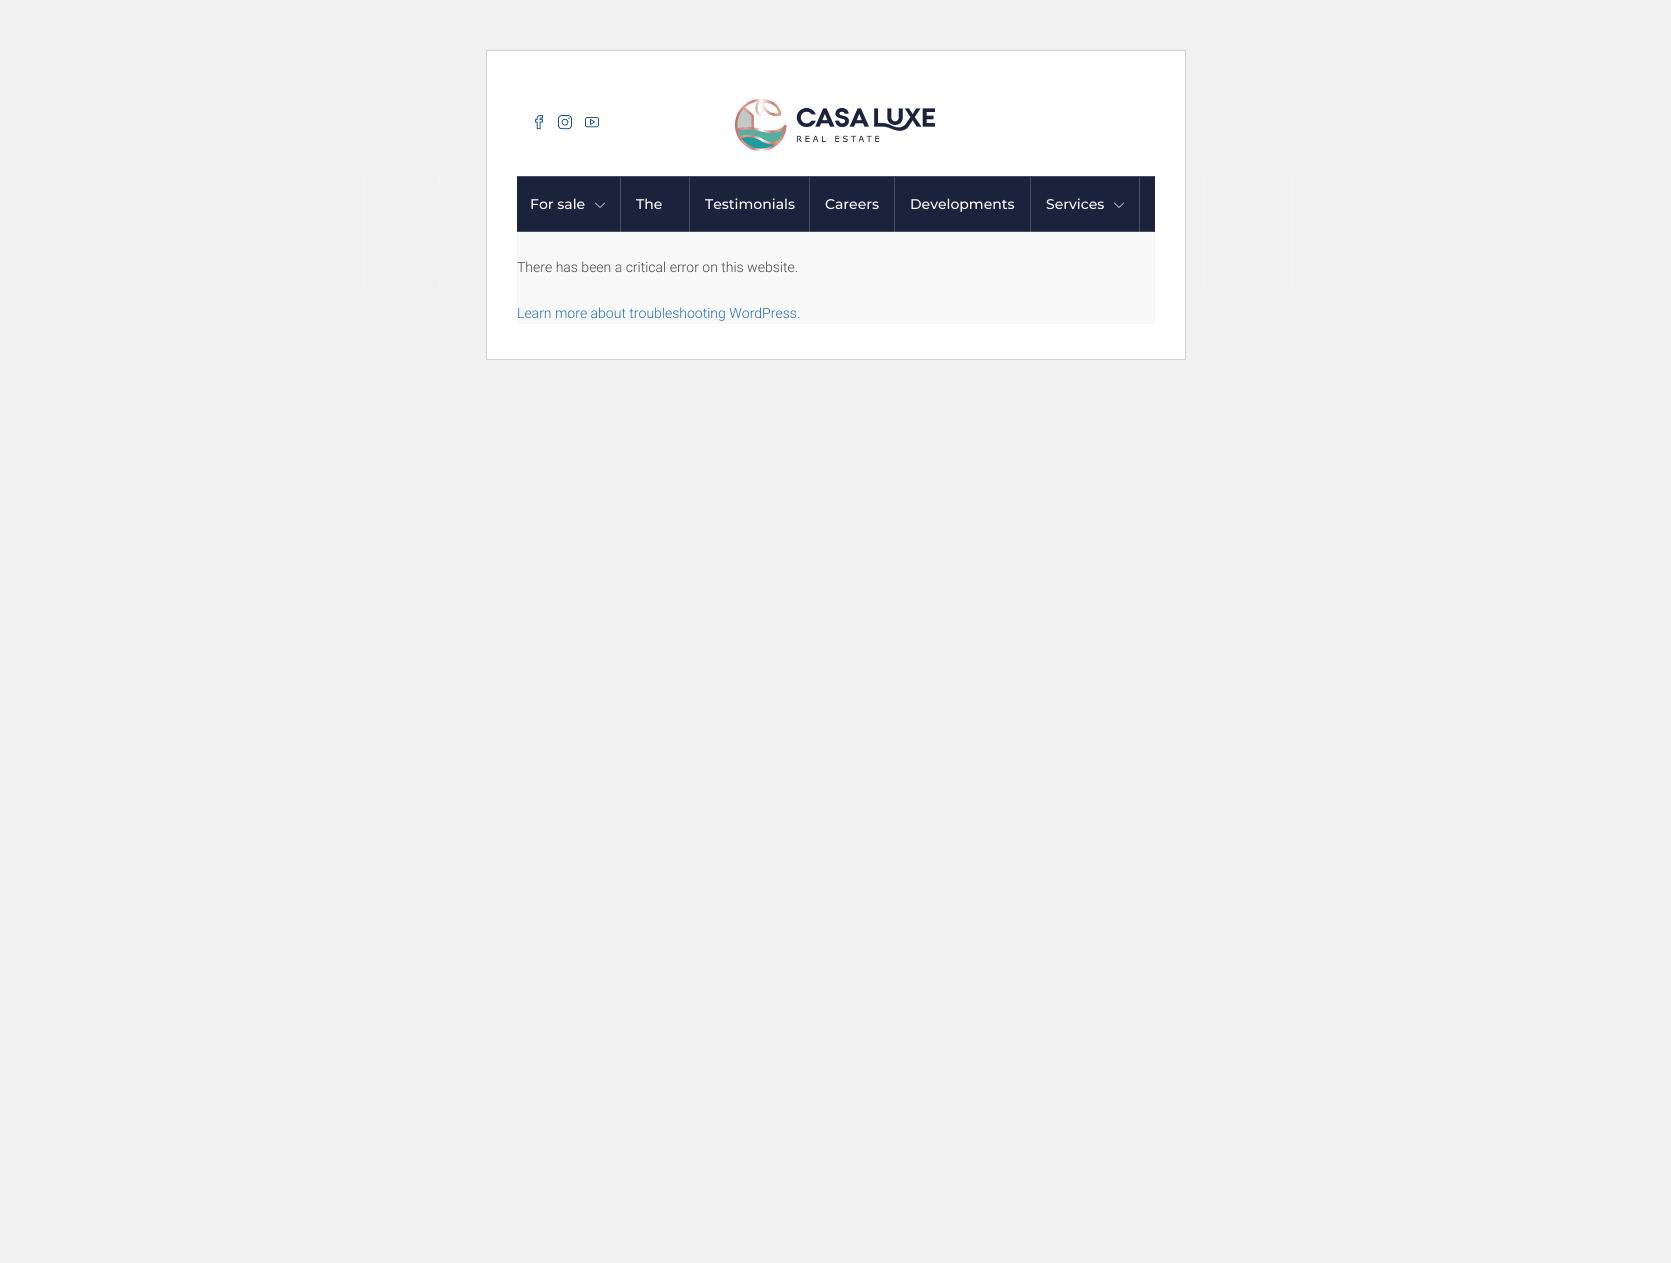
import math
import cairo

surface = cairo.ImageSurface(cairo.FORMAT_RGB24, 1671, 1263)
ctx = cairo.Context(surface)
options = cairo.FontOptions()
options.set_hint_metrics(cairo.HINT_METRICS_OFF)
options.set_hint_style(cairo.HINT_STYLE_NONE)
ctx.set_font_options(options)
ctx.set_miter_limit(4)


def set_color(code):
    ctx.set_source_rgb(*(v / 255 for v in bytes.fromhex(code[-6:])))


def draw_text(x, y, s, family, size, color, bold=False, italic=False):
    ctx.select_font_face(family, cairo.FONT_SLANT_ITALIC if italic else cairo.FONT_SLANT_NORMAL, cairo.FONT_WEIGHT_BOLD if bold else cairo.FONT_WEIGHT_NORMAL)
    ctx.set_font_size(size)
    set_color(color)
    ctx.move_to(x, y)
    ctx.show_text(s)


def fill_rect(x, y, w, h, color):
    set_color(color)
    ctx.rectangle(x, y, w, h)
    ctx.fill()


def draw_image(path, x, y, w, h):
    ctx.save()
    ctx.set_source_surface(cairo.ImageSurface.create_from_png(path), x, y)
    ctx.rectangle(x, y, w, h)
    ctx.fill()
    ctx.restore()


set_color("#f1f1f1")
ctx.paint()
set_color("#ffffff")
ctx.rectangle(486.5, 50.5, 699, 309)
ctx.fill_preserve()
set_color("#ccd0d4")
ctx.set_line_width(1)
ctx.stroke()
fill_rect(517, 232, 638, 92, "#f8f8f8")
draw_image("assets/img1.png", 535, 115, 8, 15)
draw_image("assets/img2.png", 558, 115, 14, 15)
draw_image("assets/img3.png", 585, 117, 14, 11)
draw_image("assets/img4.png", 735, 99, 200, 52)
fill_rect(517, 177, 638, 54, "#1b223c")
fill_rect(1139, 177, 1, 55, "#494e63")
fill_rect(1030, 177, 1, 55, "#494e63")
fill_rect(894, 177, 1, 55, "#494e63")
fill_rect(809, 177, 1, 55, "#494e63")
fill_rect(517, 176, 638, 1, "#494e63")
fill_rect(517, 231, 638, 1, "#494e63")
fill_rect(1139, 231, 1, 1, "#6d7182")
fill_rect(1030, 231, 1, 1, "#6d7182")
fill_rect(894, 231, 1, 1, "#6d7182")
fill_rect(809, 231, 1, 1, "#6d7182")
fill_rect(439, 177, 1, 108, "#f4f4f4")
fill_rect(364, 177, 1, 108, "#f4f4f4")
draw_text(517, 272, "There has been a critical error on this website.", "Roboto Light", 14, "#444444")
ctx.set_source_rgba(1, 1, 1, 0.2)
ctx.rectangle(620, 177, 1, 95)
ctx.fill()
draw_text(530, 209, "For sale", "Montserrat Medium", 14, "#ffffff")
draw_image("assets/img5.png", 595, 202, 10, 6)
ctx.set_source_rgba(1, 1, 1, 0.2)
ctx.rectangle(689, 177, 1, 96)
ctx.fill()
draw_text(636, 209, "The", "Montserrat Medium", 14, "#ffffff")
draw_text(705, 209, "Testimonials", "Montserrat Medium", 14, "#ffffff")
draw_text(825, 209, "Careers", "Montserrat Medium", 14, "#ffffff")
draw_text(910, 209, "Developments", "Montserrat Medium", 14, "#ffffff")
draw_text(1046, 209, "Services", "Montserrat Medium", 14, "#ffffff")
draw_image("assets/img5.png", 1114, 202, 10, 6)
fill_rect(1203, 177, 1, 108, "#f4f4f4")
fill_rect(1291, 177, 1, 108, "#f4f4f4")
draw_text(517, 318, "Learn more about troubleshooting WordPress.", "Roboto Light", 14, "#2271b1")
surface.write_to_png("output.png")
